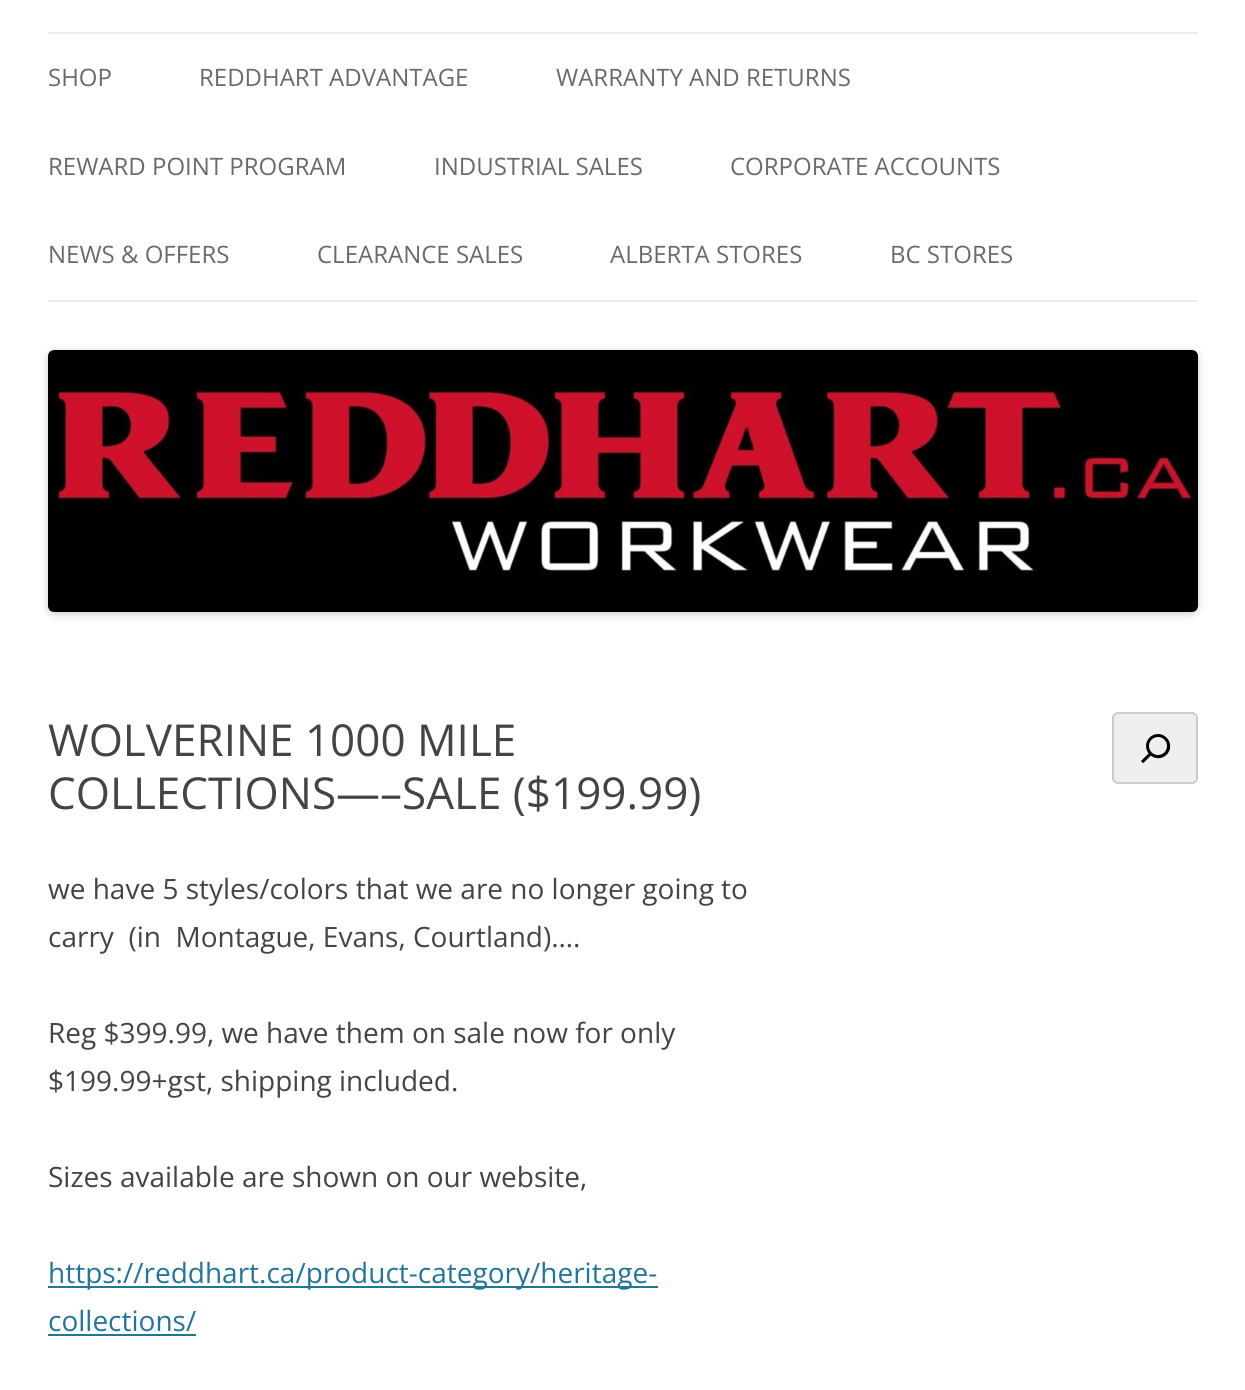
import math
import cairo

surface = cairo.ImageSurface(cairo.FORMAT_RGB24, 1245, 1390)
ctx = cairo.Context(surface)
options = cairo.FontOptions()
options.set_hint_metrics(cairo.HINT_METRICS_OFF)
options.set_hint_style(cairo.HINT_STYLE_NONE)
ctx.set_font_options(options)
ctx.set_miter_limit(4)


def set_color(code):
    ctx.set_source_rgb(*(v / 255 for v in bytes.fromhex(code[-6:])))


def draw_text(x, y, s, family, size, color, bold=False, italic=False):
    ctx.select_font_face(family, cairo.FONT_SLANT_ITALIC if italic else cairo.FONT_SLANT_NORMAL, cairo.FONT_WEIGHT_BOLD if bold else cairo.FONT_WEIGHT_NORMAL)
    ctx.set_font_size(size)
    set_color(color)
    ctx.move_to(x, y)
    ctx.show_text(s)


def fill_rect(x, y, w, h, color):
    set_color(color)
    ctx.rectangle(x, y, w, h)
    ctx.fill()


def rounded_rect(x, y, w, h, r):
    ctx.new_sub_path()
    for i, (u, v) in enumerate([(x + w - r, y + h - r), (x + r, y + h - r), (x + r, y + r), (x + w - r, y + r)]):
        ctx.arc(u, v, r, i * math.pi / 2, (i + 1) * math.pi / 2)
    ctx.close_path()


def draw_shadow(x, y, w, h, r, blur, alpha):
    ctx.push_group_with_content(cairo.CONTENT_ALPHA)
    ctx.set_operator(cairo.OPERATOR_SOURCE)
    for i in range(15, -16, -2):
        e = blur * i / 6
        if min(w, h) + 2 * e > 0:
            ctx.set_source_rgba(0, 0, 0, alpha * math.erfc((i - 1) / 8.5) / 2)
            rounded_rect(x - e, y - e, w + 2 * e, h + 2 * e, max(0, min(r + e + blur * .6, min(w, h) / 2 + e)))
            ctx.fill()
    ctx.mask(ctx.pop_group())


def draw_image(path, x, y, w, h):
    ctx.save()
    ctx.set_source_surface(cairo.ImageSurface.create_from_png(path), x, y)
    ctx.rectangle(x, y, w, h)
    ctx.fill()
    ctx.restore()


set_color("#ffffff")
ctx.paint()
fill_rect(48, 32, 1150, 2, "#ededed")
fill_rect(48, 300, 1150, 2, "#ededed")
draw_text(48, 86, "SHOP", "Open Sans", 24, "#6a6a6a")
draw_text(199, 86, "REDDHART ADVANTAGE", "Open Sans", 24, "#6a6a6a")
draw_text(556, 86, "WARRANTY AND RETURNS", "Open Sans", 24, "#6a6a6a")
draw_text(48, 175, "REWARD POINT PROGRAM", "Open Sans", 24, "#6a6a6a")
draw_text(434, 175, "INDUSTRIAL SALES", "Open Sans", 24, "#6a6a6a")
draw_text(730, 175, "CORPORATE ACCOUNTS", "Open Sans", 24, "#6a6a6a")
draw_text(48, 263, "NEWS & OFFERS", "Open Sans", 24, "#6a6a6a")
draw_text(317, 263, "CLEARANCE SALES", "Open Sans", 24, "#6a6a6a")
draw_text(610, 263, "ALBERTA STORES", "Open Sans", 24, "#6a6a6a")
draw_text(890, 263, "BC STORES", "Open Sans", 24, "#6a6a6a")
set_color("#000000")
draw_shadow(48, 352, 1150, 262, 6, 4, 0.2)
draw_image("assets/img1.png", 48, 350, 1150, 262)
draw_text(48, 756, "WOLVERINE 1000 MILE", "Open Sans", 44, "#444444")
draw_text(48, 809, "COLLECTIONS—–SALE ($199.99)", "Open Sans", 44, "#444444")
draw_text(48, 899, "we have 5 styles/colors that we are no longer going to", "Open Sans", 28, "#444444")
draw_text(48, 947, "carry  (in  Montague, Evans, Courtland)….", "Open Sans", 28, "#444444")
draw_text(48, 1043, "Reg $399.99, we have them on sale now for only", "Open Sans", 28, "#444444")
draw_text(48, 1091, "$199.99+gst, shipping included.", "Open Sans", 28, "#444444")
draw_text(48, 1187, "Sizes available are shown on our website,", "Open Sans", 28, "#444444")
fill_rect(48, 1286, 610, 2, "#21759b")
draw_text(48, 1283, "https://reddhart.ca/product-category/heritage-", "Open Sans", 28, "#21759b")
draw_text(48, 1331, "collections/", "Open Sans", 28, "#21759b")
fill_rect(48, 1334, 148, 2, "#21759b")
set_color("#efefef")
rounded_rect(1113, 713, 84, 70, 5)
ctx.fill_preserve()
set_color("#cccccc")
ctx.stroke()
draw_image("assets/img2.png", 1141, 734, 30, 30)
surface.write_to_png("output.png")
